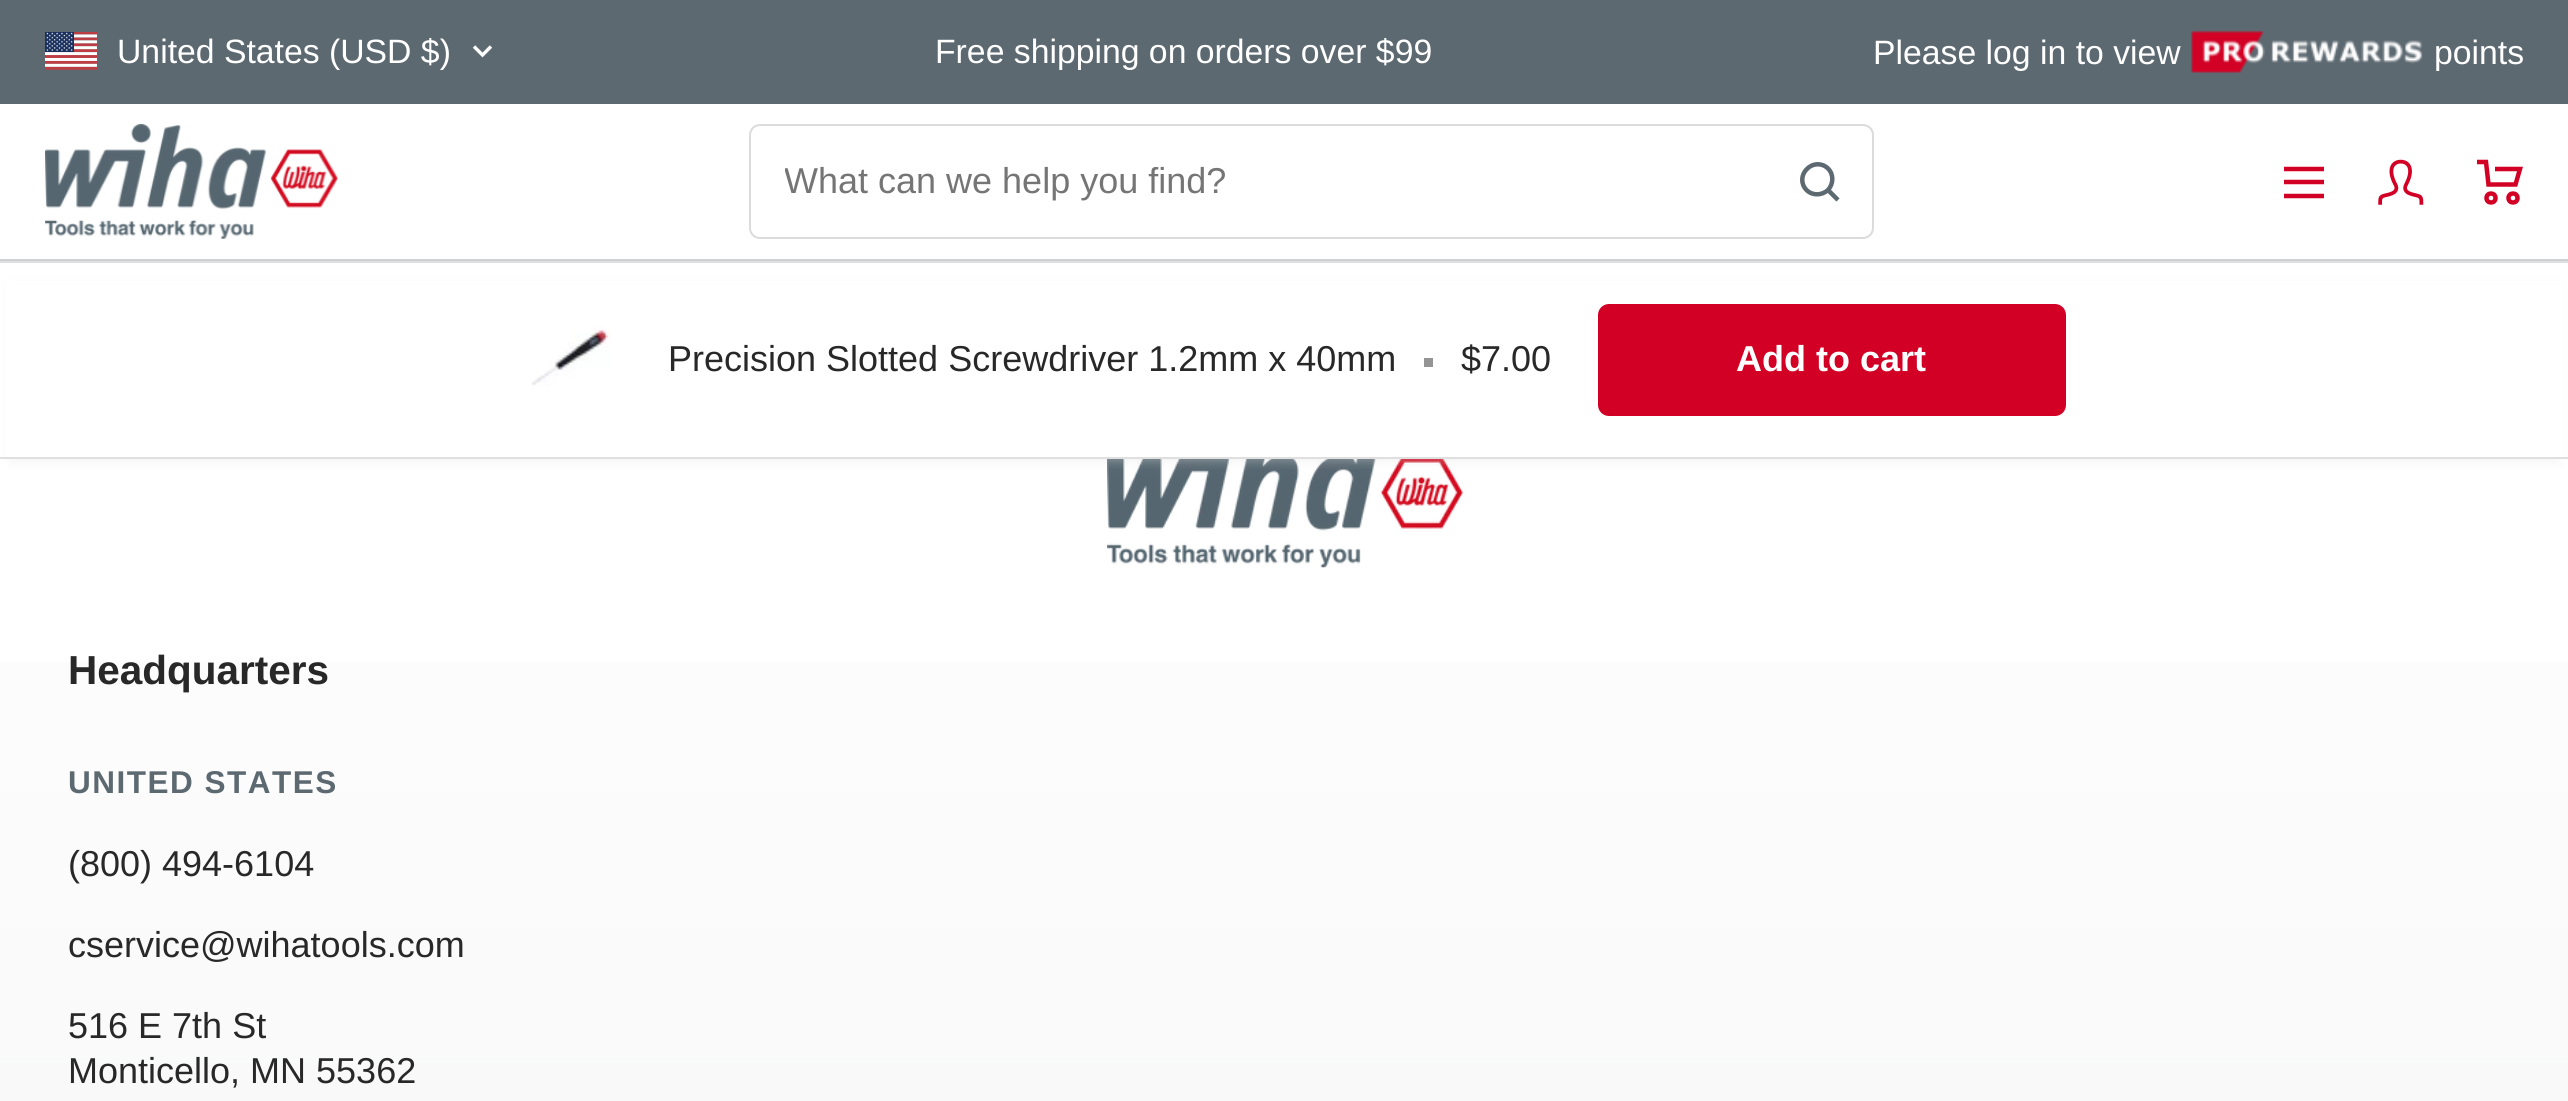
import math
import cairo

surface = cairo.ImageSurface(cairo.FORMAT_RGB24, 2568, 1101)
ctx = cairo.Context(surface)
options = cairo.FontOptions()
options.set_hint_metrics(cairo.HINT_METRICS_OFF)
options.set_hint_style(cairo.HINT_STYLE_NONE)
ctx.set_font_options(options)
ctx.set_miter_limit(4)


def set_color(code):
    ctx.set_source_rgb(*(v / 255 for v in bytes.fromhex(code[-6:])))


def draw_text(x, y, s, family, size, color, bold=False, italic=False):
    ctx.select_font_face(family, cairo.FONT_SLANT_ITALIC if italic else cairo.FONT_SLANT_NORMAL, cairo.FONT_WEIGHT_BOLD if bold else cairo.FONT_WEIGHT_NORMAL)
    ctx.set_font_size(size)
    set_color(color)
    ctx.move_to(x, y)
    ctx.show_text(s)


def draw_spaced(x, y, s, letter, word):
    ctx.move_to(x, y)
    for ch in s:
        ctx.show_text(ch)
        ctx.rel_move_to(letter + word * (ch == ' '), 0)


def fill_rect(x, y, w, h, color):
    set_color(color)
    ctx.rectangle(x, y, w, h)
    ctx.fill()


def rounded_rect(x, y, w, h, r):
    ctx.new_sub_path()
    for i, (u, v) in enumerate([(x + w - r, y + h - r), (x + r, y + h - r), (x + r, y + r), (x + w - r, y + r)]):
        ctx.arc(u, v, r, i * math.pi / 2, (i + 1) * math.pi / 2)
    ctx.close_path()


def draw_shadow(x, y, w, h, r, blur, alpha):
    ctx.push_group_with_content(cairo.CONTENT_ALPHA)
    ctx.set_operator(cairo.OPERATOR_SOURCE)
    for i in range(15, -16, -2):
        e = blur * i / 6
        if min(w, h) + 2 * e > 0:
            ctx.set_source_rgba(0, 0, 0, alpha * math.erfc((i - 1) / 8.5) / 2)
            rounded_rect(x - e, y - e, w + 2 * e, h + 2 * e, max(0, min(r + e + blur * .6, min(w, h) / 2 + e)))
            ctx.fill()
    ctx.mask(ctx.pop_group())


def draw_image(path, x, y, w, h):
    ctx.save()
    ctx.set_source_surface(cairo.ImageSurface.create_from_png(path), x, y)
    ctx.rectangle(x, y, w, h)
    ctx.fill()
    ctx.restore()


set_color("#ffffff")
ctx.paint()
fill_rect(0, 0, 2568, 104, "#5d6971")
draw_image("assets/img1.png", 45, 32, 52, 38)
draw_text(117, 63, "United States (USD $)", "Liberation Sans", 33.75, "#ffffff")
ctx.new_path()
ctx.move_to(474, 46.5)
ctx.line_to(482.5, 55)
ctx.line_to(491, 46.5)
ctx.set_line_width(3.4)
ctx.stroke()
draw_text(935, 63, "Free shipping on orders over $99", "Liberation Sans", 33.75, "#ffffff")
draw_text(1873, 64, "Please log in to view", "Liberation Sans", 33.75, "#ffffff")
draw_image("assets/img2.png", 2191, 30, 232, 43)
draw_text(2434, 64, "points", "Liberation Sans", 33.75, "#ffffff")
fill_rect(0, 259, 2568, 2, "#cdd1d3")
draw_image("assets/img3.png", 45, 123, 293, 116)
rounded_rect(750, 125, 1123, 113, 10)
set_color("#dbdbdb")
ctx.set_line_width(2)
ctx.stroke()
ctx.save()
ctx.rectangle(785, 162, 997, 41)
ctx.clip()
draw_text(784, 193, "What can we help you find?", "Liberation Sans", 36, "#757575")
ctx.restore()
ctx.new_path()
ctx.move_to(1828, 190)
ctx.curve_to(1833.5, 184, 1834, 174.5, 1828, 168.5)
ctx.curve_to(1822, 162.5, 1812.5, 163, 1807, 169)
ctx.curve_to(1801, 174.5, 1800.5, 184, 1806.5, 190)
ctx.curve_to(1812.5, 196, 1822, 195.5, 1828, 190)
ctx.close_path()
ctx.move_to(1828, 190)
ctx.line_to(1838, 200)
set_color("#5d6970")
ctx.set_line_width(4.5)
ctx.stroke()
ctx.new_path()
ctx.move_to(2284, 169)
ctx.line_to(2324, 169)
ctx.move_to(2284, 196)
ctx.line_to(2324, 196)
ctx.close_path()
ctx.move_to(2284, 182)
ctx.line_to(2324, 182)
ctx.close_path()
set_color("#d20024")
ctx.stroke()
draw_image("assets/img4.png", 2378, 159, 46, 46)
ctx.new_path()
ctx.move_to(2477, 162)
ctx.line_to(2486, 162)
ctx.line_to(2488.5, 184.5)
ctx.line_to(2515.5, 184.5)
ctx.line_to(2520, 169)
ctx.line_to(2495, 169)
ctx.stroke()
ctx.arc(2491, 198, 4.5, 0, 2 * math.pi)
ctx.stroke()
ctx.arc(2513, 198, 4.5, 0, 2 * math.pi)
ctx.stroke()
draw_image("assets/img6.png", 1107, 459, 356, 109)
set_color("#dfdfdf")
draw_shadow(11, 286, 2547, 175, 0, 5.5, 0.4)
fill_rect(6, 281, 2557, 176, "#ffffff")
fill_rect(0, 261, 2568, 2, "#dfdfdf")
fill_rect(0, 457, 2568, 2, "#dfdfdf")
draw_image("assets/img5.png", 531, 327, 79, 59)
draw_text(668, 371, "Precision Slotted Screwdriver 1.2mm x 40mm", "Liberation Sans", 36, "#282828")
fill_rect(1424, 358, 9, 9, "#949494")
draw_text(1461, 371, "$7.00", "Liberation Sans", 36, "#282828")
set_color("#d20024")
rounded_rect(1600.5, 306.5, 463, 107, 8.5)
ctx.fill_preserve()
ctx.set_line_width(5)
ctx.stroke()
draw_text(1736, 371, "Add to cart", "Liberation Sans", 36, "#ffffff", bold=True)
gradient = cairo.LinearGradient(1285, 313, 1285, 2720)
gradient.add_color_stop_rgba(0, 1, 1, 1, 1)
gradient.add_color_stop_rgba(0.29, 0.98, 0.98, 0.98, 1)
gradient.add_color_stop_rgba(1, 0.922, 0.929, 0.929, 1)
ctx.set_source(gradient)
ctx.rectangle(0, 662, 2568, 439)
ctx.fill()
draw_text(68, 684, "Headquarters", "Liberation Sans", 40.5, "#282828", bold=True)
ctx.set_font_size(31.5)
set_color("#5d6971")
draw_spaced(68, 793, "UNITED STATES", 1.5, 0)
draw_text(68, 876, "(800) 494-6104", "Liberation Sans", 36, "#282828")
draw_text(68, 957, "cservice@wihatools.com", "Liberation Sans", 36, "#282828")
draw_text(68, 1038, "516 E 7th St", "Liberation Sans", 36, "#282828")
draw_text(68, 1083, "Monticello, MN 55362", "Liberation Sans", 36, "#282828")
surface.write_to_png("output.png")
